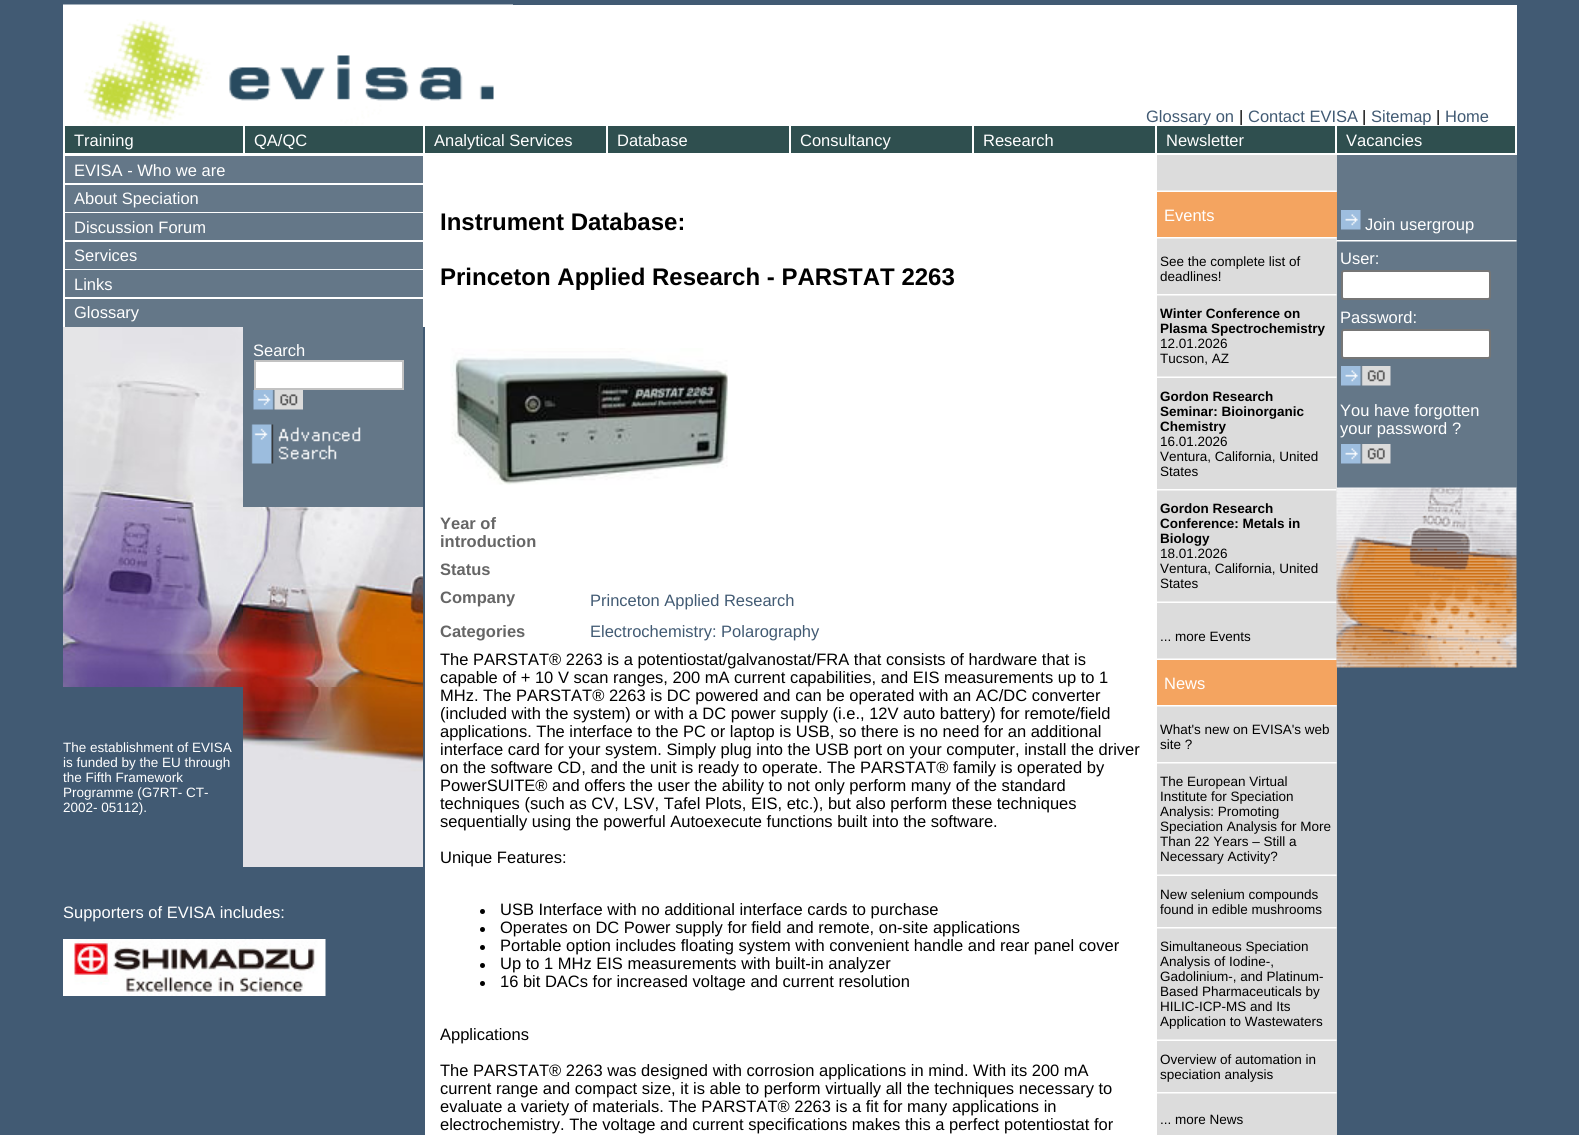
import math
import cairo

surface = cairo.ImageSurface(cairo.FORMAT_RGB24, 1579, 1135)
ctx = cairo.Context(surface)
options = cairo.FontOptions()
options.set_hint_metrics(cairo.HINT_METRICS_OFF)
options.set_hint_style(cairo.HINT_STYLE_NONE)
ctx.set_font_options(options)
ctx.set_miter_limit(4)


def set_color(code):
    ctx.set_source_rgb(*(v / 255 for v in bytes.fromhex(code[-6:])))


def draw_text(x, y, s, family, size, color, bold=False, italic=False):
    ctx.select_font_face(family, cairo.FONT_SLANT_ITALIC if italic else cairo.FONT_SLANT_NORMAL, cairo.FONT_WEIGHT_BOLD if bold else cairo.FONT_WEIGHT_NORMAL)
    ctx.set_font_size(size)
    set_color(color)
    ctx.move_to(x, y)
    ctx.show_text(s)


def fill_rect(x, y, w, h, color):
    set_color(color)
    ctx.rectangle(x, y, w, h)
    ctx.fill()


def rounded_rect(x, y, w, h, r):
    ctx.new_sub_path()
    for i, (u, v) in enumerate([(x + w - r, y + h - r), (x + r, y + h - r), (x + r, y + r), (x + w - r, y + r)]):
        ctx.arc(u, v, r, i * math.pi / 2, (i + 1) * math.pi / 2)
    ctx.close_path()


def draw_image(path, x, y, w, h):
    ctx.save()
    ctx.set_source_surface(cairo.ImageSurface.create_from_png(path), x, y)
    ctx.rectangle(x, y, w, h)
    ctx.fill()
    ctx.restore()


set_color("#415a73")
ctx.paint()
fill_rect(63, 5, 1454, 120, "#ffffff")
draw_image("assets/img1.png", 63, 4, 450, 121)
draw_text(1146, 122, "Glossary on", "Liberation Sans", 16.5, "#415a73")
draw_text(1239, 122, "|", "Liberation Sans", 16.5, "#000000")
draw_text(1248, 122, "Contact EVISA", "Liberation Sans", 16.5, "#415a73")
draw_text(1362, 122, "|", "Liberation Sans", 16.5, "#000000")
draw_text(1371, 122, "Sitemap", "Liberation Sans", 16.5, "#415a73")
draw_text(1436, 122, "|", "Liberation Sans", 16.5, "#000000")
draw_text(1445, 122, "Home", "Liberation Sans", 16.5, "#415a73")
fill_rect(63, 125, 1454, 30, "#ffffff")
fill_rect(65, 126, 178, 27, "#2f4f4f")
draw_text(74, 146, "Training", "Liberation Sans", 16.5, "#ffffff")
fill_rect(245, 126, 178, 27, "#2f4f4f")
draw_text(254, 146, "QA/QC", "Liberation Sans", 16.5, "#ffffff")
fill_rect(425, 126, 181, 27, "#2f4f4f")
draw_text(434, 146, "Analytical Services", "Liberation Sans", 16.5, "#ffffff")
fill_rect(608, 126, 181, 27, "#2f4f4f")
draw_text(617, 146, "Database", "Liberation Sans", 16.5, "#ffffff")
fill_rect(791, 126, 181, 27, "#2f4f4f")
draw_text(800, 146, "Consultancy", "Liberation Sans", 16.5, "#ffffff")
fill_rect(974, 126, 181, 27, "#2f4f4f")
draw_text(983, 146, "Research", "Liberation Sans", 16.5, "#ffffff")
fill_rect(1157, 126, 178, 27, "#2f4f4f")
draw_text(1166, 146, "Newsletter", "Liberation Sans", 16.5, "#ffffff")
fill_rect(1337, 126, 178, 27, "#2f4f4f")
draw_text(1346, 146, "Vacancies", "Liberation Sans", 16.5, "#ffffff")
fill_rect(63, 155, 362, 172, "#ffffff")
fill_rect(65, 156, 358, 27, "#647788")
draw_text(74, 176, "EVISA - Who we are", "Liberation Sans", 16.5, "#ffffff")
fill_rect(65, 185, 358, 27, "#647788")
draw_text(74, 204, "About Speciation", "Liberation Sans", 16.5, "#ffffff")
fill_rect(65, 213, 358, 27, "#647788")
draw_text(74, 233, "Discussion Forum", "Liberation Sans", 16.5, "#ffffff")
fill_rect(65, 242, 358, 27, "#647788")
draw_text(74, 261, "Services", "Liberation Sans", 16.5, "#ffffff")
fill_rect(65, 270, 358, 27, "#647788")
draw_text(74, 290, "Links", "Liberation Sans", 16.5, "#ffffff")
fill_rect(65, 299, 358, 28, "#647788")
draw_text(74, 318, "Glossary", "Liberation Sans", 16.5, "#ffffff")
draw_image("assets/img2.png", 63, 327, 180, 180)
fill_rect(243, 327, 180, 180, "#647788")
draw_text(253, 356, "Search", "Liberation Sans", 16.5, "#ffffff")
ctx.rectangle(255, 361, 148, 28)
ctx.fill_preserve()
set_color("#c2c2c2")
ctx.stroke()
draw_image("assets/img3.png", 253, 390, 50, 20)
draw_image("assets/img4.png", 251, 424, 110, 40)
draw_image("assets/img5.png", 63, 507, 180, 180)
draw_image("assets/img6.png", 243, 507, 180, 180)
draw_text(63, 752, "The establishment of EVISA", "Liberation Sans", 13.5, "#ffffff")
draw_text(63, 767, "is funded by the EU through", "Liberation Sans", 13.5, "#ffffff")
draw_text(63, 782, "the Fifth Framework", "Liberation Sans", 13.5, "#ffffff")
draw_text(63, 797, "Programme (G7RT- CT-", "Liberation Sans", 13.5, "#ffffff")
draw_text(63, 812, "2002- 05112).", "Liberation Sans", 13.5, "#ffffff")
draw_image("assets/img7.png", 243, 687, 180, 180)
draw_text(63, 918, "Supporters of EVISA includes:", "Liberation Sans", 16.5, "#ffffff")
draw_image("assets/img8.png", 63, 939, 263, 57)
fill_rect(425, 155, 732, 980, "#ffffff")
draw_text(440, 230, "Instrument Database:", "Liberation Sans", 24, "#000000", bold=True)
draw_text(440, 285, "Princeton Applied Research - PARSTAT 2263", "Liberation Sans", 24, "#000000", bold=True)
draw_image("assets/img9.png", 450, 348, 278, 137)
draw_text(440, 529, "Year of", "Liberation Sans", 16.5, "#666666", bold=True)
draw_text(440, 547, "introduction", "Liberation Sans", 16.5, "#666666", bold=True)
draw_text(440, 575, "Status", "Liberation Sans", 16.5, "#666666", bold=True)
draw_text(440, 603, "Company", "Liberation Sans", 16.5, "#666666", bold=True)
draw_text(590, 606, "Princeton Applied Research", "Liberation Sans", 16.5, "#415a73")
draw_text(440, 637, "Categories", "Liberation Sans", 16.5, "#666666", bold=True)
draw_text(590, 637, "Electrochemistry: Polarography", "Liberation Sans", 16.5, "#415a73")
draw_text(440, 665, "The PARSTAT® 2263 is a potentiostat/galvanostat/FRA that consists of hardware that is", "Liberation Sans", 16.5, "#000000")
draw_text(440, 683, "capable of + 10 V scan ranges, 200 mA current capabilities, and EIS measurements up to 1", "Liberation Sans", 16.5, "#000000")
draw_text(440, 701, "MHz. The PARSTAT® 2263 is DC powered and can be operated with an AC/DC converter", "Liberation Sans", 16.5, "#000000")
draw_text(440, 719, "(included with the system) or with a DC power supply (i.e., 12V auto battery) for remote/field", "Liberation Sans", 16.5, "#000000")
draw_text(440, 737, "applications. The interface to the PC or laptop is USB, so there is no need for an additional", "Liberation Sans", 16.5, "#000000")
draw_text(440, 755, "interface card for your system. Simply plug into the USB port on your computer, install the driver", "Liberation Sans", 16.5, "#000000")
draw_text(440, 773, "on the software CD, and the unit is ready to operate. The PARSTAT® family is operated by", "Liberation Sans", 16.5, "#000000")
draw_text(440, 791, "PowerSUITE® and offers the user the ability to not only perform many of the standard", "Liberation Sans", 16.5, "#000000")
draw_text(440, 809, "techniques (such as CV, LSV, Tafel Plots, EIS, etc.), but also perform these techniques", "Liberation Sans", 16.5, "#000000")
draw_text(440, 827, "sequentially using the powerful Autoexecute functions built into the software.", "Liberation Sans", 16.5, "#000000")
draw_text(440, 863, "Unique Features:", "Liberation Sans", 16.5, "#000000")
ctx.new_path()
ctx.arc(482.5, 911.5, 2.5, 0, 2 * math.pi)
ctx.fill()
draw_text(500, 915, "USB Interface with no additional interface cards to purchase", "Liberation Sans", 16.5, "#000000")
ctx.new_path()
ctx.arc(482.5, 929.5, 2.5, 0, 2 * math.pi)
ctx.fill()
draw_text(500, 933, "Operates on DC Power supply for field and remote, on-site applications", "Liberation Sans", 16.5, "#000000")
ctx.new_path()
ctx.arc(482.5, 947.5, 2.5, 0, 2 * math.pi)
ctx.fill()
draw_text(500, 951, "Portable option includes floating system with convenient handle and rear panel cover", "Liberation Sans", 16.5, "#000000")
ctx.new_path()
ctx.arc(482.5, 965.5, 2.5, 0, 2 * math.pi)
ctx.fill()
draw_text(500, 969, "Up to 1 MHz EIS measurements with built-in analyzer", "Liberation Sans", 16.5, "#000000")
ctx.new_path()
ctx.arc(482.5, 983.5, 2.5, 0, 2 * math.pi)
ctx.fill()
draw_text(500, 987, "16 bit DACs for increased voltage and current resolution", "Liberation Sans", 16.5, "#000000")
draw_text(440, 1040, "Applications", "Liberation Sans", 16.5, "#000000")
draw_text(440, 1076, "The PARSTAT® 2263 was designed with corrosion applications in mind. With its 200 mA", "Liberation Sans", 16.5, "#000000")
draw_text(440, 1094, "current range and compact size, it is able to perform virtually all the techniques necessary to", "Liberation Sans", 16.5, "#000000")
draw_text(440, 1112, "evaluate a variety of materials. The PARSTAT® 2263 is a fit for many applications in", "Liberation Sans", 16.5, "#000000")
draw_text(440, 1130, "electrochemistry. The voltage and current specifications makes this a perfect potentiostat for", "Liberation Sans", 16.5, "#000000")
fill_rect(1157, 155, 180, 980, "#dcdcdc")
draw_image("assets/img10.png", 1157, 190, 180, 2)
fill_rect(1157, 192, 180, 45, "#f4a460")
draw_text(1164, 221, "Events", "Liberation Sans", 16.5, "#ffffff")
draw_image("assets/img11.png", 1157, 237, 180, 2)
draw_text(1160, 266, "See the complete list of", "Liberation Sans", 13.5, "#000000")
draw_text(1160, 281, "deadlines!", "Liberation Sans", 13.5, "#000000")
draw_image("assets/img11.png", 1157, 294, 180, 2)
draw_text(1160, 318, "Winter Conference on", "Liberation Sans", 13.5, "#000000", bold=True)
draw_text(1160, 333, "Plasma Spectrochemistry", "Liberation Sans", 13.5, "#000000", bold=True)
draw_text(1160, 348, "12.01.2026", "Liberation Sans", 13.5, "#000000")
draw_text(1160, 363, "Tucson, AZ", "Liberation Sans", 13.5, "#000000")
draw_image("assets/img10.png", 1157, 376, 180, 2)
draw_text(1160, 401, "Gordon Research", "Liberation Sans", 13.5, "#000000", bold=True)
draw_text(1160, 416, "Seminar: Bioinorganic", "Liberation Sans", 13.5, "#000000", bold=True)
draw_text(1160, 431, "Chemistry", "Liberation Sans", 13.5, "#000000", bold=True)
draw_text(1160, 446, "16.01.2026", "Liberation Sans", 13.5, "#000000")
draw_text(1160, 461, "Ventura, California, United", "Liberation Sans", 13.5, "#000000")
draw_text(1160, 476, "States", "Liberation Sans", 13.5, "#000000")
draw_image("assets/img11.png", 1157, 489, 180, 2)
draw_text(1160, 513, "Gordon Research", "Liberation Sans", 13.5, "#000000", bold=True)
draw_text(1160, 528, "Conference: Metals in", "Liberation Sans", 13.5, "#000000", bold=True)
draw_text(1160, 543, "Biology", "Liberation Sans", 13.5, "#000000", bold=True)
draw_text(1160, 558, "18.01.2026", "Liberation Sans", 13.5, "#000000")
draw_text(1160, 573, "Ventura, California, United", "Liberation Sans", 13.5, "#000000")
draw_text(1160, 588, "States", "Liberation Sans", 13.5, "#000000")
draw_image("assets/img10.png", 1157, 601, 180, 2)
draw_text(1160, 641, "... more Events", "Liberation Sans", 13.5, "#000000")
draw_image("assets/img10.png", 1157, 658, 180, 2)
fill_rect(1157, 660, 180, 45, "#f4a460")
draw_text(1164, 689, "News", "Liberation Sans", 16.5, "#ffffff")
draw_image("assets/img11.png", 1157, 705, 180, 2)
draw_text(1160, 734, "What's new on EVISA's web", "Liberation Sans", 13.5, "#000000")
draw_text(1160, 749, "site ?", "Liberation Sans", 13.5, "#000000")
draw_image("assets/img11.png", 1157, 762, 180, 2)
draw_text(1160, 786, "The European Virtual", "Liberation Sans", 13.5, "#000000")
draw_text(1160, 801, "Institute for Speciation", "Liberation Sans", 13.5, "#000000")
draw_text(1160, 816, "Analysis: Promoting", "Liberation Sans", 13.5, "#000000")
draw_text(1160, 831, "Speciation Analysis for More", "Liberation Sans", 13.5, "#000000")
draw_text(1160, 846, "Than 22 Years – Still a", "Liberation Sans", 13.5, "#000000")
draw_text(1160, 861, "Necessary Activity?", "Liberation Sans", 13.5, "#000000")
draw_image("assets/img10.png", 1157, 874, 180, 2)
draw_text(1160, 899, "New selenium compounds", "Liberation Sans", 13.5, "#000000")
draw_text(1160, 914, "found in edible mushrooms", "Liberation Sans", 13.5, "#000000")
draw_image("assets/img11.png", 1157, 927, 180, 2)
draw_text(1160, 951, "Simultaneous Speciation", "Liberation Sans", 13.5, "#000000")
draw_text(1160, 966, "Analysis of Iodine-,", "Liberation Sans", 13.5, "#000000")
draw_text(1160, 981, "Gadolinium-, and Platinum-", "Liberation Sans", 13.5, "#000000")
draw_text(1160, 996, "Based Pharmaceuticals by", "Liberation Sans", 13.5, "#000000")
draw_text(1160, 1011, "HILIC-ICP-MS and Its", "Liberation Sans", 13.5, "#000000")
draw_text(1160, 1026, "Application to Wastewaters", "Liberation Sans", 13.5, "#000000")
draw_image("assets/img10.png", 1157, 1039, 180, 2)
draw_text(1160, 1064, "Overview of automation in", "Liberation Sans", 13.5, "#000000")
draw_text(1160, 1079, "speciation analysis", "Liberation Sans", 13.5, "#000000")
draw_image("assets/img11.png", 1157, 1092, 180, 2)
draw_text(1160, 1124, "... more News", "Liberation Sans", 13.5, "#000000")
fill_rect(1337, 155, 180, 333, "#647788")
draw_image("assets/img12.png", 1341, 210, 20, 20)
draw_text(1365, 230, "Join usergroup", "Liberation Sans", 16.5, "#ffffff")
draw_image("assets/img13.png", 1336, 240, 181, 2)
draw_text(1340, 264, "User:", "Liberation Sans", 16.5, "#ffffff")
rounded_rect(1342, 271, 148, 28, 2)
ctx.fill_preserve()
set_color("#767676")
ctx.stroke()
draw_text(1340, 323, "Password:", "Liberation Sans", 16.5, "#ffffff")
rounded_rect(1342, 330, 148, 28, 2)
ctx.fill_preserve()
set_color("#767676")
ctx.stroke()
draw_image("assets/img14.png", 1341, 366, 50, 20)
draw_text(1340, 416, "You have forgotten", "Liberation Sans", 16.5, "#ffffff")
draw_text(1340, 434, "your password ?", "Liberation Sans", 16.5, "#ffffff")
draw_image("assets/img14.png", 1341, 444, 50, 20)
draw_image("assets/img15.png", 1336, 487, 181, 181)
surface.write_to_png("output.png")
